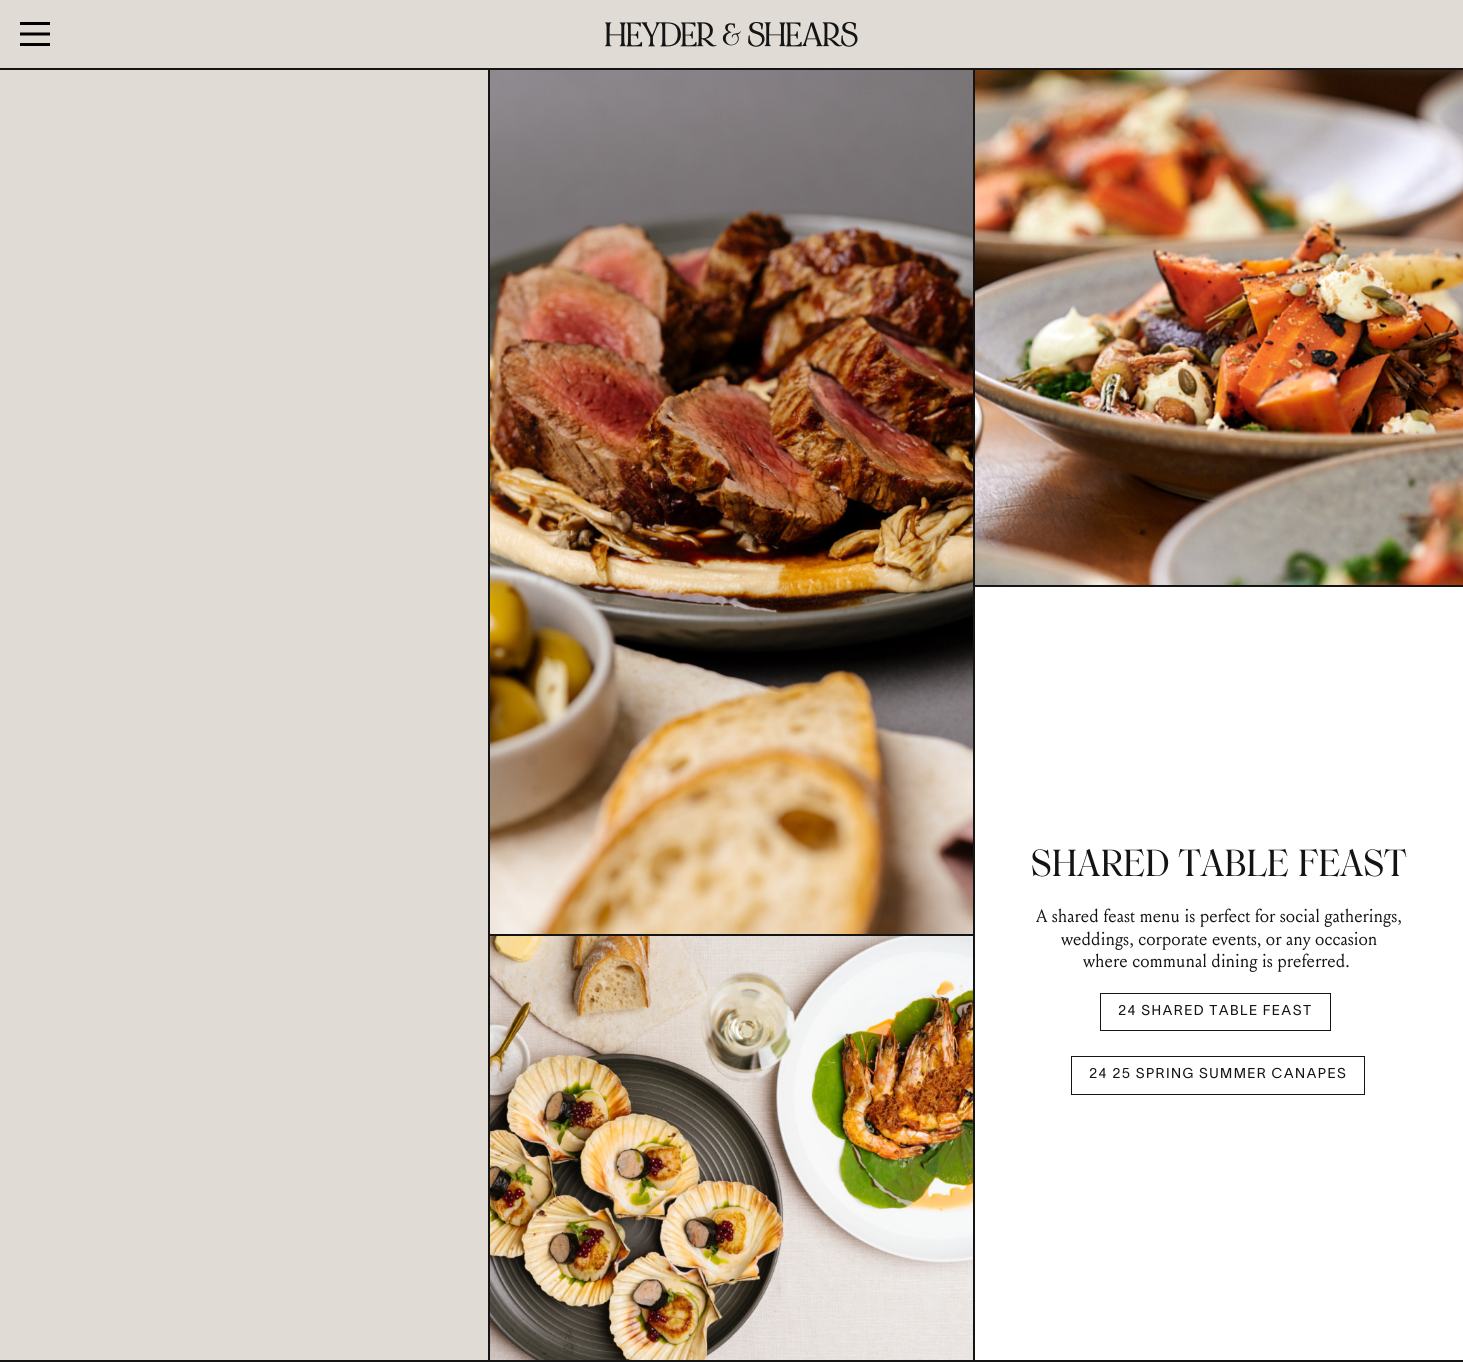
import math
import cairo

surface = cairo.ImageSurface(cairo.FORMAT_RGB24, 1463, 1362)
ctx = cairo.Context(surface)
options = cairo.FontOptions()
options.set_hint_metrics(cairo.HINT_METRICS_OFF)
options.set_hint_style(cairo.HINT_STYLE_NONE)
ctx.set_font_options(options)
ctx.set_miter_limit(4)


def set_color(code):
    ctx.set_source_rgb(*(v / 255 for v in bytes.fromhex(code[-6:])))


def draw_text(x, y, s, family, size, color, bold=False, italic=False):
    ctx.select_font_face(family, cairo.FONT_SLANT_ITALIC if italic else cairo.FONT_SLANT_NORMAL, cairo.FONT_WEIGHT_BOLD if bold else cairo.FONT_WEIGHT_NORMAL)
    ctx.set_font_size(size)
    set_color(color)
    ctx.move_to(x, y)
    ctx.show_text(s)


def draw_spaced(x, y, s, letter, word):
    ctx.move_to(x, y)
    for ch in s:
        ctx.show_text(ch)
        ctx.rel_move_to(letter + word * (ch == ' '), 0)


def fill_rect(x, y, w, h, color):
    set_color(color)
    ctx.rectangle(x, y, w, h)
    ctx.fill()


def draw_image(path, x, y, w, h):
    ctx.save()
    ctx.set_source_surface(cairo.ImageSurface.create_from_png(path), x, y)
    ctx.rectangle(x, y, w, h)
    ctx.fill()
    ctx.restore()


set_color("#e0dcd5")
ctx.paint()
fill_rect(0, 68, 1463, 2, "#141414")
draw_image("assets/img1.png", 20, 22, 30, 24)
draw_image("assets/img2.png", 605, 22, 253, 25)
fill_rect(973, 70, 2, 1292, "#141414")
fill_rect(488, 70, 2, 1292, "#141414")
fill_rect(490, 934, 483, 2, "#141414")
draw_image("assets/img3.png", 490, 70, 483, 864)
fill_rect(490, 1360, 483, 2, "#141414")
draw_image("assets/img4.png", 490, 936, 483, 424)
fill_rect(975, 585, 488, 2, "#141414")
draw_image("assets/img5.png", 975, 70, 488, 515)
fill_rect(975, 587, 488, 773, "#ffffff")
fill_rect(975, 1360, 488, 2, "#141414")
draw_text(1031, 876, "SHARED TABLE FEAST", "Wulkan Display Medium", 36.5, "#141414")
draw_text(1036, 922, "A shared feast menu is perfect for social gatherings,", "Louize", 18, "#141414")
draw_text(1061, 945, "weddings, corporate events, or any occasion", "Louize", 18, "#141414")
draw_text(1083, 967, "where communal dining is preferred.", "Louize", 18, "#141414")
ctx.rectangle(1100.5, 993.5, 230, 37)
ctx.set_line_width(1)
ctx.stroke()
ctx.select_font_face("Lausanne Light")
ctx.set_font_size(14)
draw_spaced(1118, 1015, "24 SHARED TABLE FEAST", 1.4, 0)
ctx.rectangle(1071.5, 1056.5, 293, 38)
ctx.stroke()
draw_spaced(1089, 1078, "24 25 SPRING SUMMER CANAPES", 1.4, 0)
fill_rect(0, 1360, 488, 2, "#141414")
surface.write_to_png("output.png")
